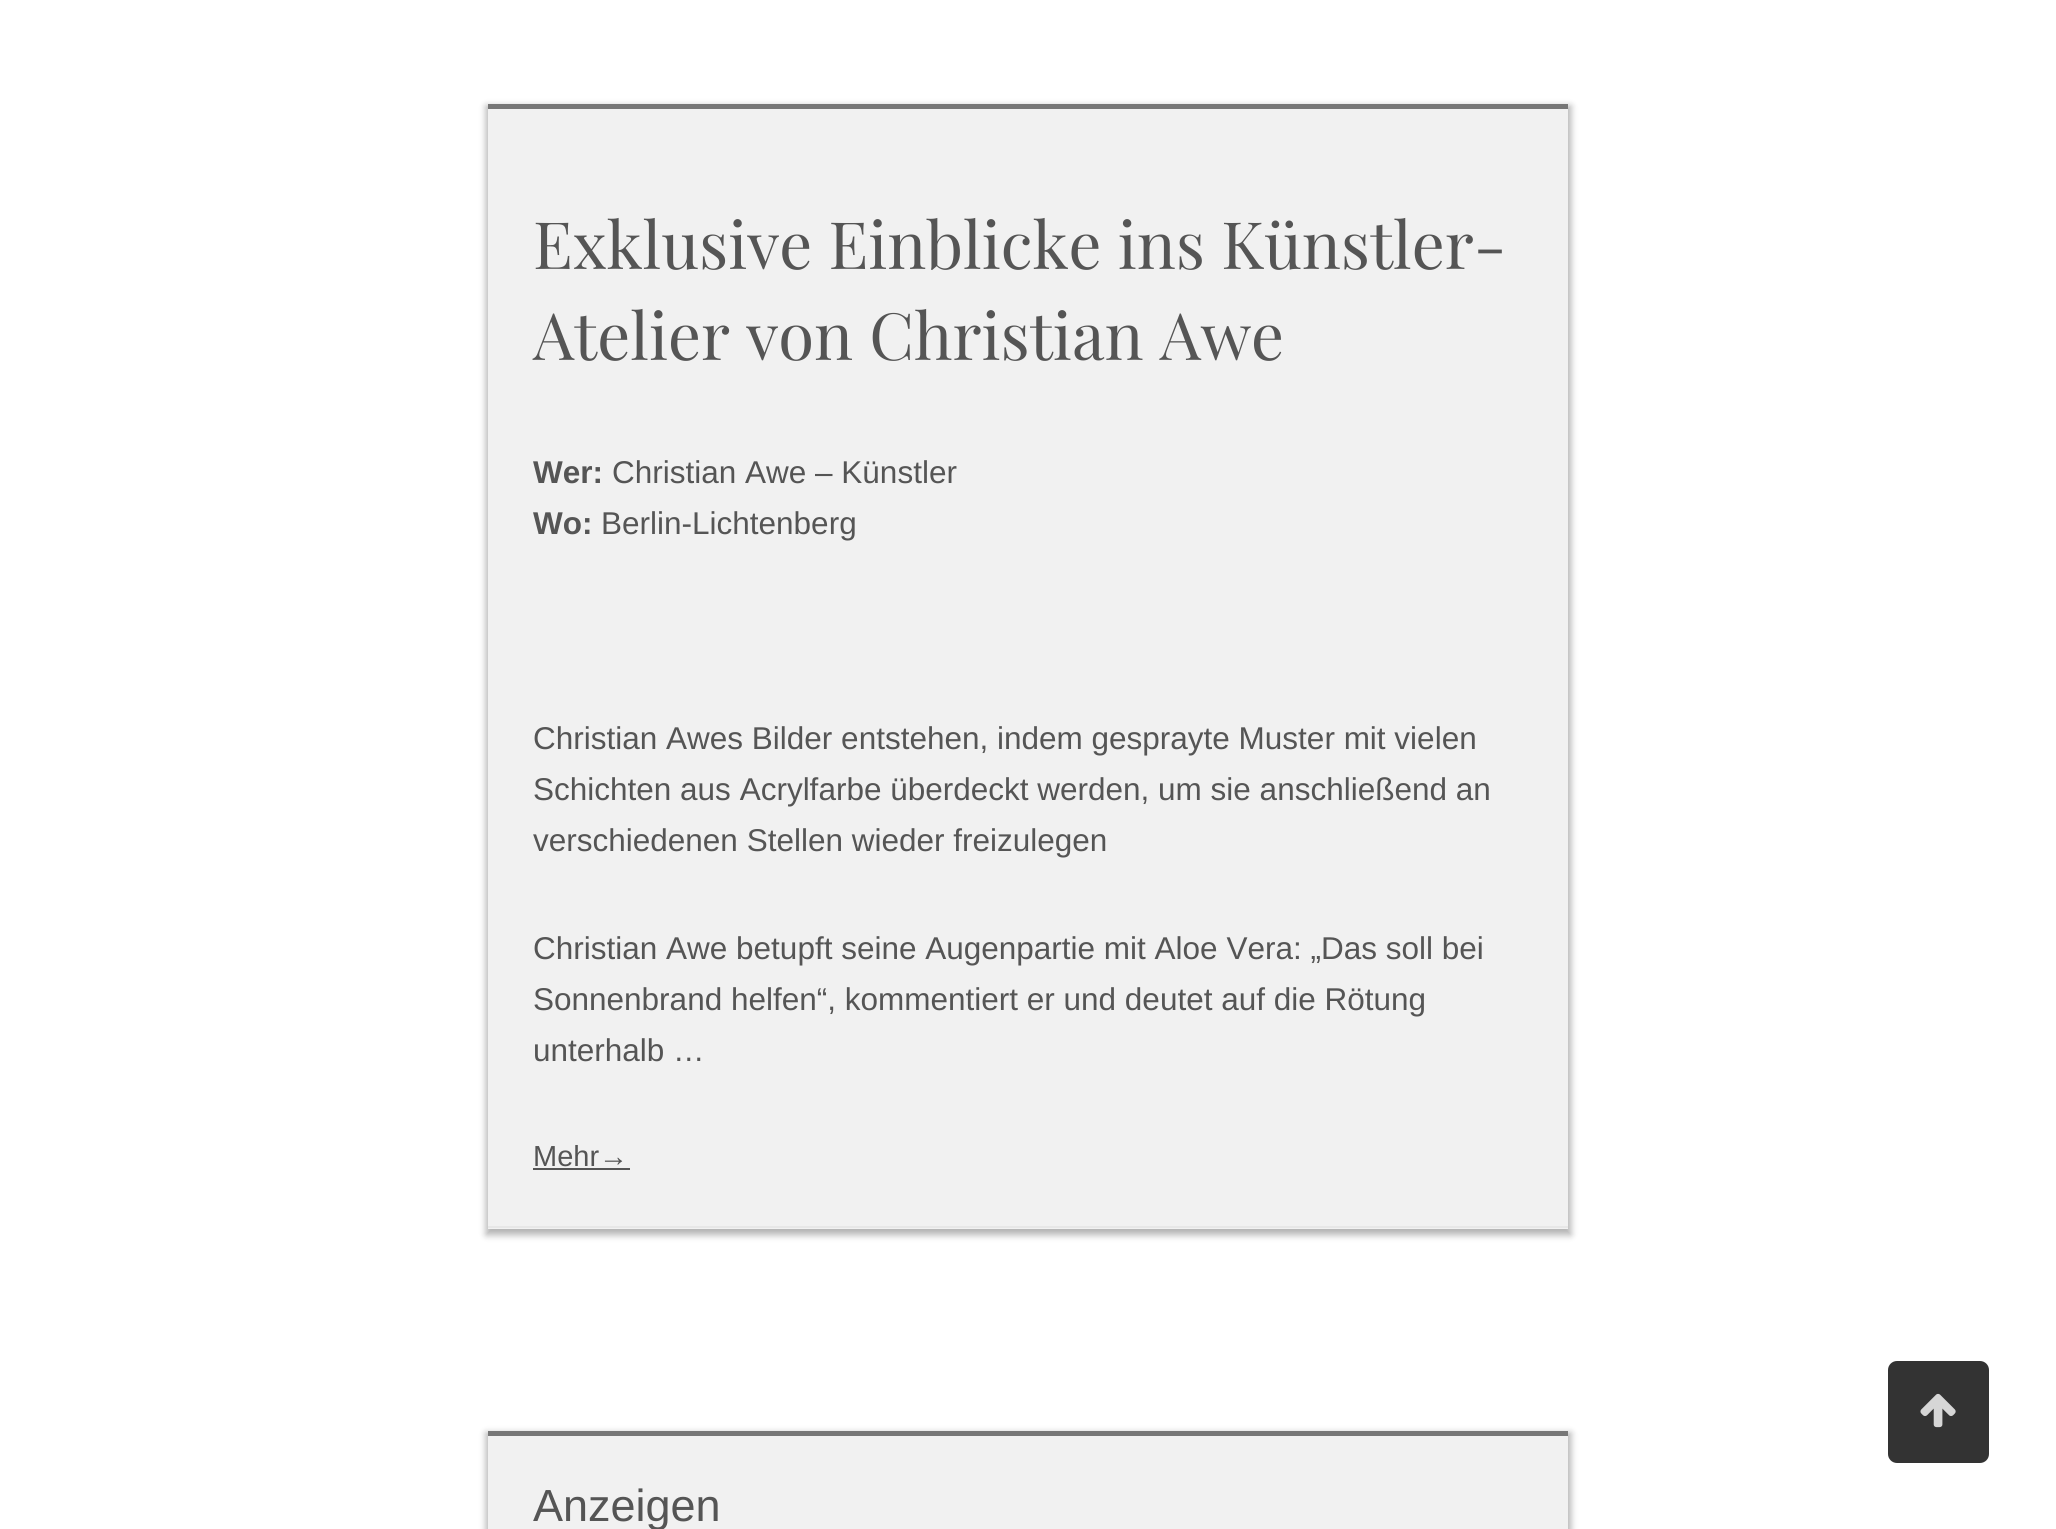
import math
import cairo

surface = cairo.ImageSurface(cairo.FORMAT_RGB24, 2056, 1529)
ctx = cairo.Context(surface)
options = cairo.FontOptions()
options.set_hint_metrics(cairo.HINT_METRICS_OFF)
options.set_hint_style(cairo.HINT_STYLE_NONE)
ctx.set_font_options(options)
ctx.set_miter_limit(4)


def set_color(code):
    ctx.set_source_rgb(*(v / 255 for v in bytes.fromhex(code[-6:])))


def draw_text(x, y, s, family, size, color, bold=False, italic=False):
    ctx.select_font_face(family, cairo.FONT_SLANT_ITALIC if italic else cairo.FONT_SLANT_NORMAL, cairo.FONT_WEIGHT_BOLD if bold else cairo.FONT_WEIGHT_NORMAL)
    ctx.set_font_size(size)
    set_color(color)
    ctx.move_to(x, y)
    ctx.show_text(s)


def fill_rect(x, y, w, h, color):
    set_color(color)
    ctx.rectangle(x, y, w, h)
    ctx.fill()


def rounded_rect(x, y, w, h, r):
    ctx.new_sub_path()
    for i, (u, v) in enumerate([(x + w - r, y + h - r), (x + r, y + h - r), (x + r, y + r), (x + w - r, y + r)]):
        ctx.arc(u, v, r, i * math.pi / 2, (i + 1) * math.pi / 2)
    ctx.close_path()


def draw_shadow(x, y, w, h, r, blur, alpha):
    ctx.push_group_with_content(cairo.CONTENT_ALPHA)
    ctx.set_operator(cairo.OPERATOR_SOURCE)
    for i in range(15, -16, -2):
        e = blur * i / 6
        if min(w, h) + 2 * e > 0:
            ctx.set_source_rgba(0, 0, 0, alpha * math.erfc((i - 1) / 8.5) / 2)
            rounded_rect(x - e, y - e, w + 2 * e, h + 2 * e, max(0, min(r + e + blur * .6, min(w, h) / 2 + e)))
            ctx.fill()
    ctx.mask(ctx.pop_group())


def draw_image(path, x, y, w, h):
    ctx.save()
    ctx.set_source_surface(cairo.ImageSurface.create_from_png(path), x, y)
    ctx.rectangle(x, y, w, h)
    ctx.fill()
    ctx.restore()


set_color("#ffffff")
ctx.paint()
set_color("#000000")
draw_shadow(486, 106, 1085, 1129, 0, 3.5, 0.3)
fill_rect(488, 109, 1080, 1120, "#f1f1f1")
fill_rect(488, 104, 1080, 5, "#777777")
fill_rect(488, 1226, 1080, 2, "#e7e7e7")
draw_text(533, 269, "Exklusive Einblicke ins Künstler-", "Playfair Display", 65.25, "#555555")
draw_text(533, 360, "Atelier von Christian Awe", "Playfair Display", 65.25, "#555555")
draw_text(533, 483, "Wer:", "Liberation Sans", 31.5, "#555555", bold=True)
draw_text(612, 483, "Christian Awe – Künstler", "Liberation Sans", 31.5, "#555555")
draw_text(533, 534, "Wo:", "Liberation Sans", 31.5, "#555555", bold=True)
draw_text(601, 534, "Berlin-Lichtenberg", "Liberation Sans", 31.5, "#555555")
draw_text(533, 749, "Christian Awes Bilder entstehen, indem gesprayte Muster mit vielen", "Liberation Sans", 31.5, "#555555")
draw_text(533, 800, "Schichten aus Acrylfarbe überdeckt werden, um sie anschließend an", "Liberation Sans", 31.5, "#555555")
draw_text(533, 851, "verschiedenen Stellen wieder freizulegen", "Liberation Sans", 31.5, "#555555")
draw_text(533, 959, "Christian Awe betupft seine Augenpartie mit Aloe Vera: „Das soll bei", "Liberation Sans", 31.5, "#555555")
draw_text(533, 1010, "Sonnenbrand helfen“, kommentiert er und deutet auf die Rötung", "Liberation Sans", 31.5, "#555555")
draw_text(533, 1061, "unterhalb …", "Liberation Sans", 31.5, "#555555")
draw_text(533, 1166, "Mehr→", "Liberation Sans", 29, "#555555")
fill_rect(533, 1168, 97, 2, "#555555")
set_color("#000000")
draw_shadow(486, 1433, 1085, 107, 0, 3.5, 0.3)
fill_rect(488, 1436, 1080, 93, "#f1f1f1")
fill_rect(488, 1431, 1080, 5, "#777777")
draw_text(533, 1521, "Anzeigen", "Liberation Sans", 45, "#555555")
set_color("#333333")
rounded_rect(1888, 1361, 101, 102, 9)
ctx.fill()
draw_image("assets/img1.png", 1920, 1393, 36, 35)
surface.write_to_png("output.png")
